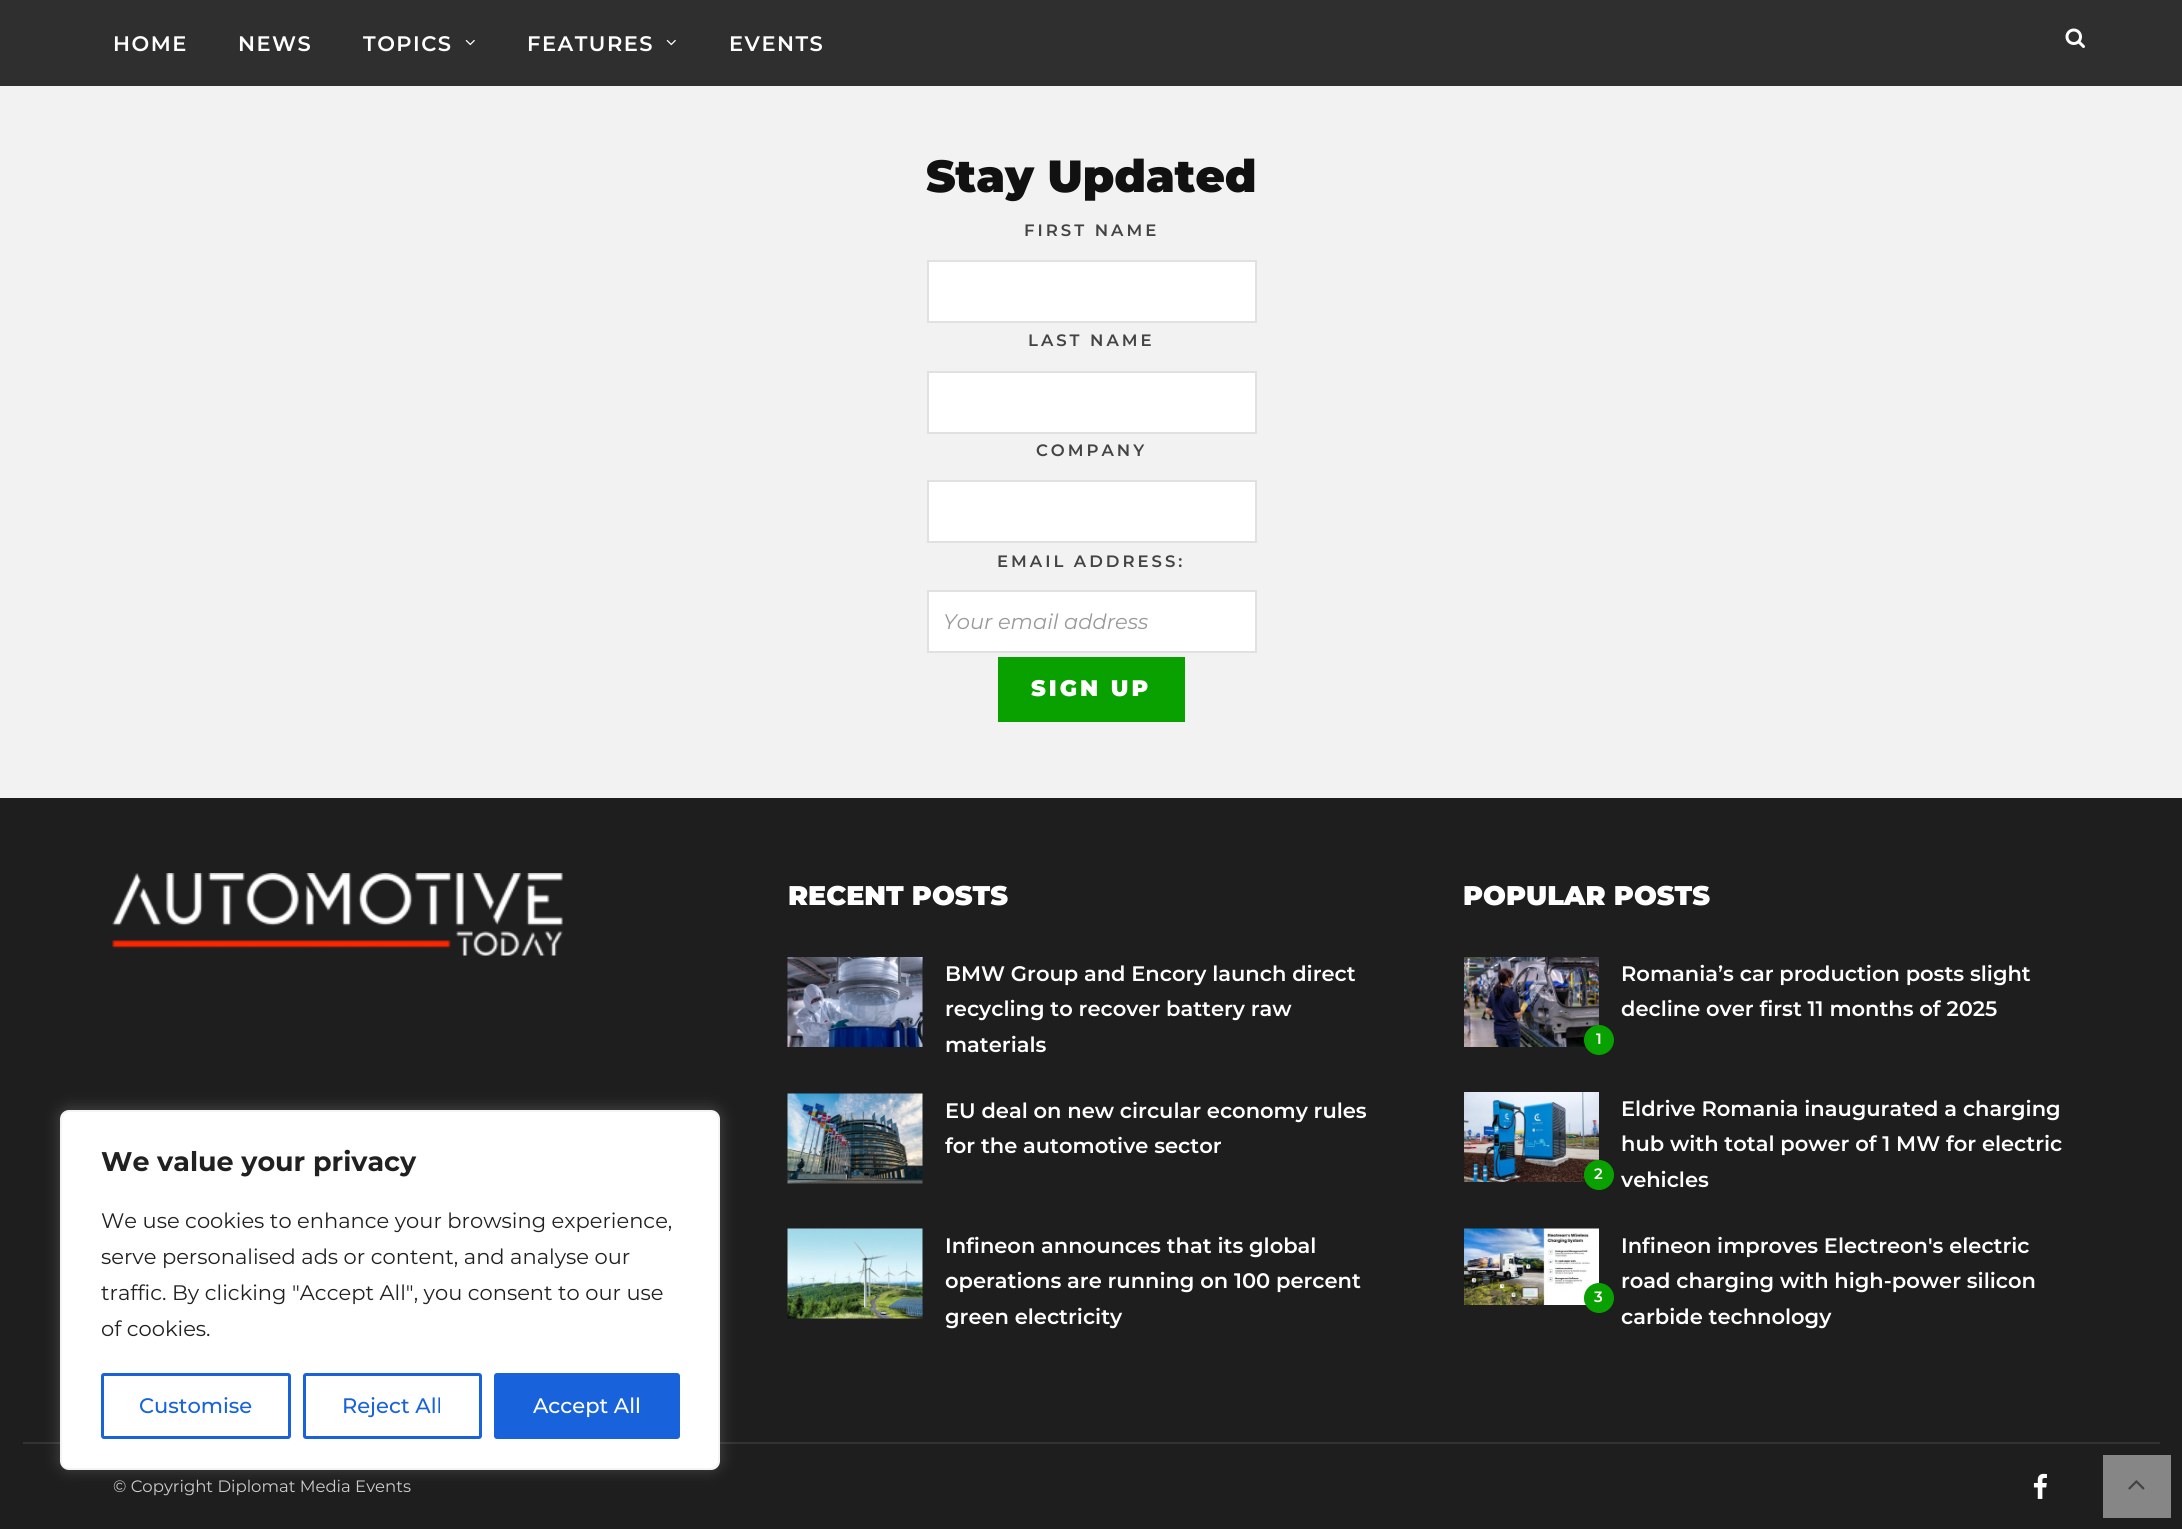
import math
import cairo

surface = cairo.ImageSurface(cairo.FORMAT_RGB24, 2182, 1529)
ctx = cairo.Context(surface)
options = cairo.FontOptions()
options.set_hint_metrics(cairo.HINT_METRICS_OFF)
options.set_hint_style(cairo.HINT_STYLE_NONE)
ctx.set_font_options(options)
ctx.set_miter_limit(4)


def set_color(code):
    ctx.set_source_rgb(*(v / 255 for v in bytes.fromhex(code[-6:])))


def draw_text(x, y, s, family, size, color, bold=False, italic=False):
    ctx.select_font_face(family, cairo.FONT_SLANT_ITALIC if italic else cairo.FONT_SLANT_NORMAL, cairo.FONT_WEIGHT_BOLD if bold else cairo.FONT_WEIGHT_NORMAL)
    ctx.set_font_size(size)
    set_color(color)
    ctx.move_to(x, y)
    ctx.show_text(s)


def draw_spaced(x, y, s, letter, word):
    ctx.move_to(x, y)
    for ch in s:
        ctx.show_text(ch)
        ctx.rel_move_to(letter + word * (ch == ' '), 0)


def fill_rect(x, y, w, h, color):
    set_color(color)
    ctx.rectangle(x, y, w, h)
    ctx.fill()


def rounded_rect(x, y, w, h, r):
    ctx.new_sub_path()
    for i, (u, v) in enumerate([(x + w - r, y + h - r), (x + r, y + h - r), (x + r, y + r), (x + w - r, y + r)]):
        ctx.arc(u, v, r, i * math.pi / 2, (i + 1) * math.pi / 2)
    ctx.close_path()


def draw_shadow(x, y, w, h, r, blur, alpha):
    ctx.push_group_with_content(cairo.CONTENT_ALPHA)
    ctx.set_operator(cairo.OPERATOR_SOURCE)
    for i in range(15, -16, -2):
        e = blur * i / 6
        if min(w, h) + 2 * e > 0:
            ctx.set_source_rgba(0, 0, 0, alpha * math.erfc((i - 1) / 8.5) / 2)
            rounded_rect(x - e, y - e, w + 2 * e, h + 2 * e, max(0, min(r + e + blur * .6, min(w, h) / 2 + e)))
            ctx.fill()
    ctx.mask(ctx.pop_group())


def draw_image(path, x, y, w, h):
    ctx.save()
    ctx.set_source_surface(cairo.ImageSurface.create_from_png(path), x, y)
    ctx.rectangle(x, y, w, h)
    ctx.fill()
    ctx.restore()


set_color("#f2f2f2")
ctx.paint()
fill_rect(0, 0, 2182, 86, "#302f2f")
ctx.select_font_face("Montserrat SemiBold")
ctx.set_font_size(21)
set_color("#ffffff")
draw_spaced(113, 51, "HOME", 1.5, 0)
draw_spaced(238, 51, "NEWS", 1.5, 0)
draw_spaced(363, 51, "TOPICS", 1.5, 0)
draw_image("assets/img1.png", 465, 39, 10, 7)
draw_spaced(527, 51, "FEATURES", 1.5, 0)
draw_image("assets/img1.png", 666, 39, 10, 7)
draw_spaced(729, 51, "EVENTS", 1.5, 0)
draw_image("assets/img2.png", 2065, 28, 20, 20)
draw_text(926, 192, "Stay Updated", "Montserrat Black", 45, "#111111")
ctx.select_font_face("Montserrat SemiBold")
ctx.set_font_size(16.5)
set_color("#444444")
draw_spaced(1024, 236, "FIRST NAME", 3, 0)
set_color("#ffffff")
ctx.rectangle(928, 261, 328, 61)
ctx.fill_preserve()
set_color("#e1e1e1")
ctx.stroke()
set_color("#444444")
draw_spaced(1028, 346, "LAST NAME", 3, 0)
set_color("#ffffff")
ctx.rectangle(928, 372, 328, 61)
ctx.fill_preserve()
set_color("#e1e1e1")
ctx.stroke()
set_color("#444444")
draw_spaced(1036, 456, "COMPANY", 3, 0)
set_color("#ffffff")
ctx.rectangle(928, 481, 328, 61)
ctx.fill_preserve()
set_color("#e1e1e1")
ctx.stroke()
set_color("#444444")
draw_spaced(997, 567, "EMAIL ADDRESS:", 3, 0)
set_color("#ffffff")
ctx.rectangle(928, 591, 328, 61)
ctx.fill_preserve()
set_color("#e1e1e1")
ctx.stroke()
draw_text(943, 629, "Your email address", "Montserrat", 21, "#999999", italic=True)
fill_rect(998, 657, 187, 65, "#08a100")
ctx.select_font_face("Montserrat Black")
ctx.set_font_size(22.5)
set_color("#ffffff")
draw_spaced(1031, 696, "SIGN UP", 3, 0)
fill_rect(0, 798, 2182, 731, "#1e1e1e")
draw_image("assets/img3.png", 112, 873, 451, 83)
draw_text(788, 905, "RECENT POSTS", "Montserrat Black", 27, "#ffffff")
draw_image("assets/img4.png", 787, 957, 136, 90)
draw_text(945, 981, "BMW Group and Encory launch direct", "Montserrat SemiBold", 21, "#ffffff")
draw_text(945, 1016, "recycling to recover battery raw", "Montserrat SemiBold", 21, "#ffffff")
draw_text(945, 1052, "materials", "Montserrat SemiBold", 21, "#ffffff")
draw_image("assets/img5.png", 787, 1093, 136, 91)
draw_text(945, 1118, "EU deal on new circular economy rules", "Montserrat SemiBold", 21, "#ffffff")
draw_text(945, 1153, "for the automotive sector", "Montserrat SemiBold", 21, "#ffffff")
draw_image("assets/img6.png", 787, 1228, 136, 91)
draw_text(945, 1253, "Infineon announces that its global", "Montserrat SemiBold", 21, "#ffffff")
draw_text(945, 1288, "operations are running on 100 percent", "Montserrat SemiBold", 21, "#ffffff")
draw_text(945, 1324, "green electricity", "Montserrat SemiBold", 21, "#ffffff")
draw_text(1463, 905, "POPULAR POSTS", "Montserrat Black", 27, "#ffffff")
draw_text(1621, 981, "Romania’s car production posts slight", "Montserrat SemiBold", 21, "#ffffff")
draw_text(1621, 1016, "decline over first 11 months of 2025", "Montserrat SemiBold", 21, "#ffffff")
draw_image("assets/img7.png", 1464, 957, 135, 90)
set_color("#08a100")
ctx.arc(1599, 1040, 15, 0, 2 * math.pi)
ctx.fill()
draw_text(1596, 1044, "1", "Montserrat SemiBold", 15, "#ffffff")
draw_text(1621, 1116, "Eldrive Romania inaugurated a charging", "Montserrat SemiBold", 21, "#ffffff")
draw_text(1621, 1151, "hub with total power of 1 MW for electric", "Montserrat SemiBold", 21, "#ffffff")
draw_image("assets/img8.png", 1464, 1092, 135, 90)
set_color("#08a100")
ctx.arc(1599, 1175, 15, 0, 2 * math.pi)
ctx.fill()
draw_text(1594, 1179, "2", "Montserrat SemiBold", 15, "#ffffff")
draw_text(1621, 1187, "vehicles", "Montserrat SemiBold", 21, "#ffffff")
draw_text(1621, 1253, "Infineon improves Electreon's electric", "Montserrat SemiBold", 21, "#ffffff")
draw_text(1621, 1288, "road charging with high-power silicon", "Montserrat SemiBold", 21, "#ffffff")
draw_image("assets/img9.png", 1464, 1228, 135, 77)
set_color("#08a100")
ctx.arc(1599, 1298, 15, 0, 2 * math.pi)
ctx.fill()
draw_text(1594, 1302, "3", "Montserrat SemiBold", 15, "#ffffff")
draw_text(1621, 1324, "carbide technology", "Montserrat SemiBold", 21, "#ffffff")
fill_rect(23, 1442, 2137, 2, "#333333")
draw_text(113, 1492, "© Copyright Diplomat Media Events", "Montserrat", 16.5, "#cccccc")
draw_image("assets/img10.png", 2033, 1473, 14, 26)
fill_rect(2103, 1455, 68, 63, "#868686")
draw_image("assets/img11.png", 2128, 1480, 17, 10)
set_color("#acabab")
draw_shadow(60, 1109, 660, 360, 9, 7.5, 0.3)
set_color("#ffffff")
rounded_rect(61, 1111, 658, 358, 8)
ctx.fill_preserve()
set_color("#f4f4f4")
ctx.stroke()
draw_text(101, 1171, "We value your privacy", "Montserrat", 27, "#212121", bold=True)
draw_text(101, 1228, "We use cookies to enhance your browsing experience,", "Montserrat", 21, "#212121")
draw_text(101, 1264, "serve personalised ads or content, and analyse our", "Montserrat", 21, "#212121")
draw_text(101, 1300, "traffic. By clicking \"Accept All\", you consent to our use", "Montserrat", 21, "#212121")
draw_text(101, 1336, "of cookies.", "Montserrat", 21, "#212121")
rounded_rect(102.5, 1374.5, 187, 63, 1.5)
set_color("#1863dc")
ctx.set_line_width(3)
ctx.stroke()
draw_text(139, 1413, "Customise", "Montserrat Medium", 21, "#1863dc")
rounded_rect(304.5, 1374.5, 176, 63, 1.5)
ctx.stroke()
draw_text(342, 1413, "Reject All", "Montserrat Medium", 21, "#1863dc")
rounded_rect(495.5, 1374.5, 183, 63, 1.5)
ctx.fill_preserve()
ctx.stroke()
draw_text(533, 1413, "Accept All", "Montserrat Medium", 21, "#ffffff")
surface.write_to_png("output.png")
